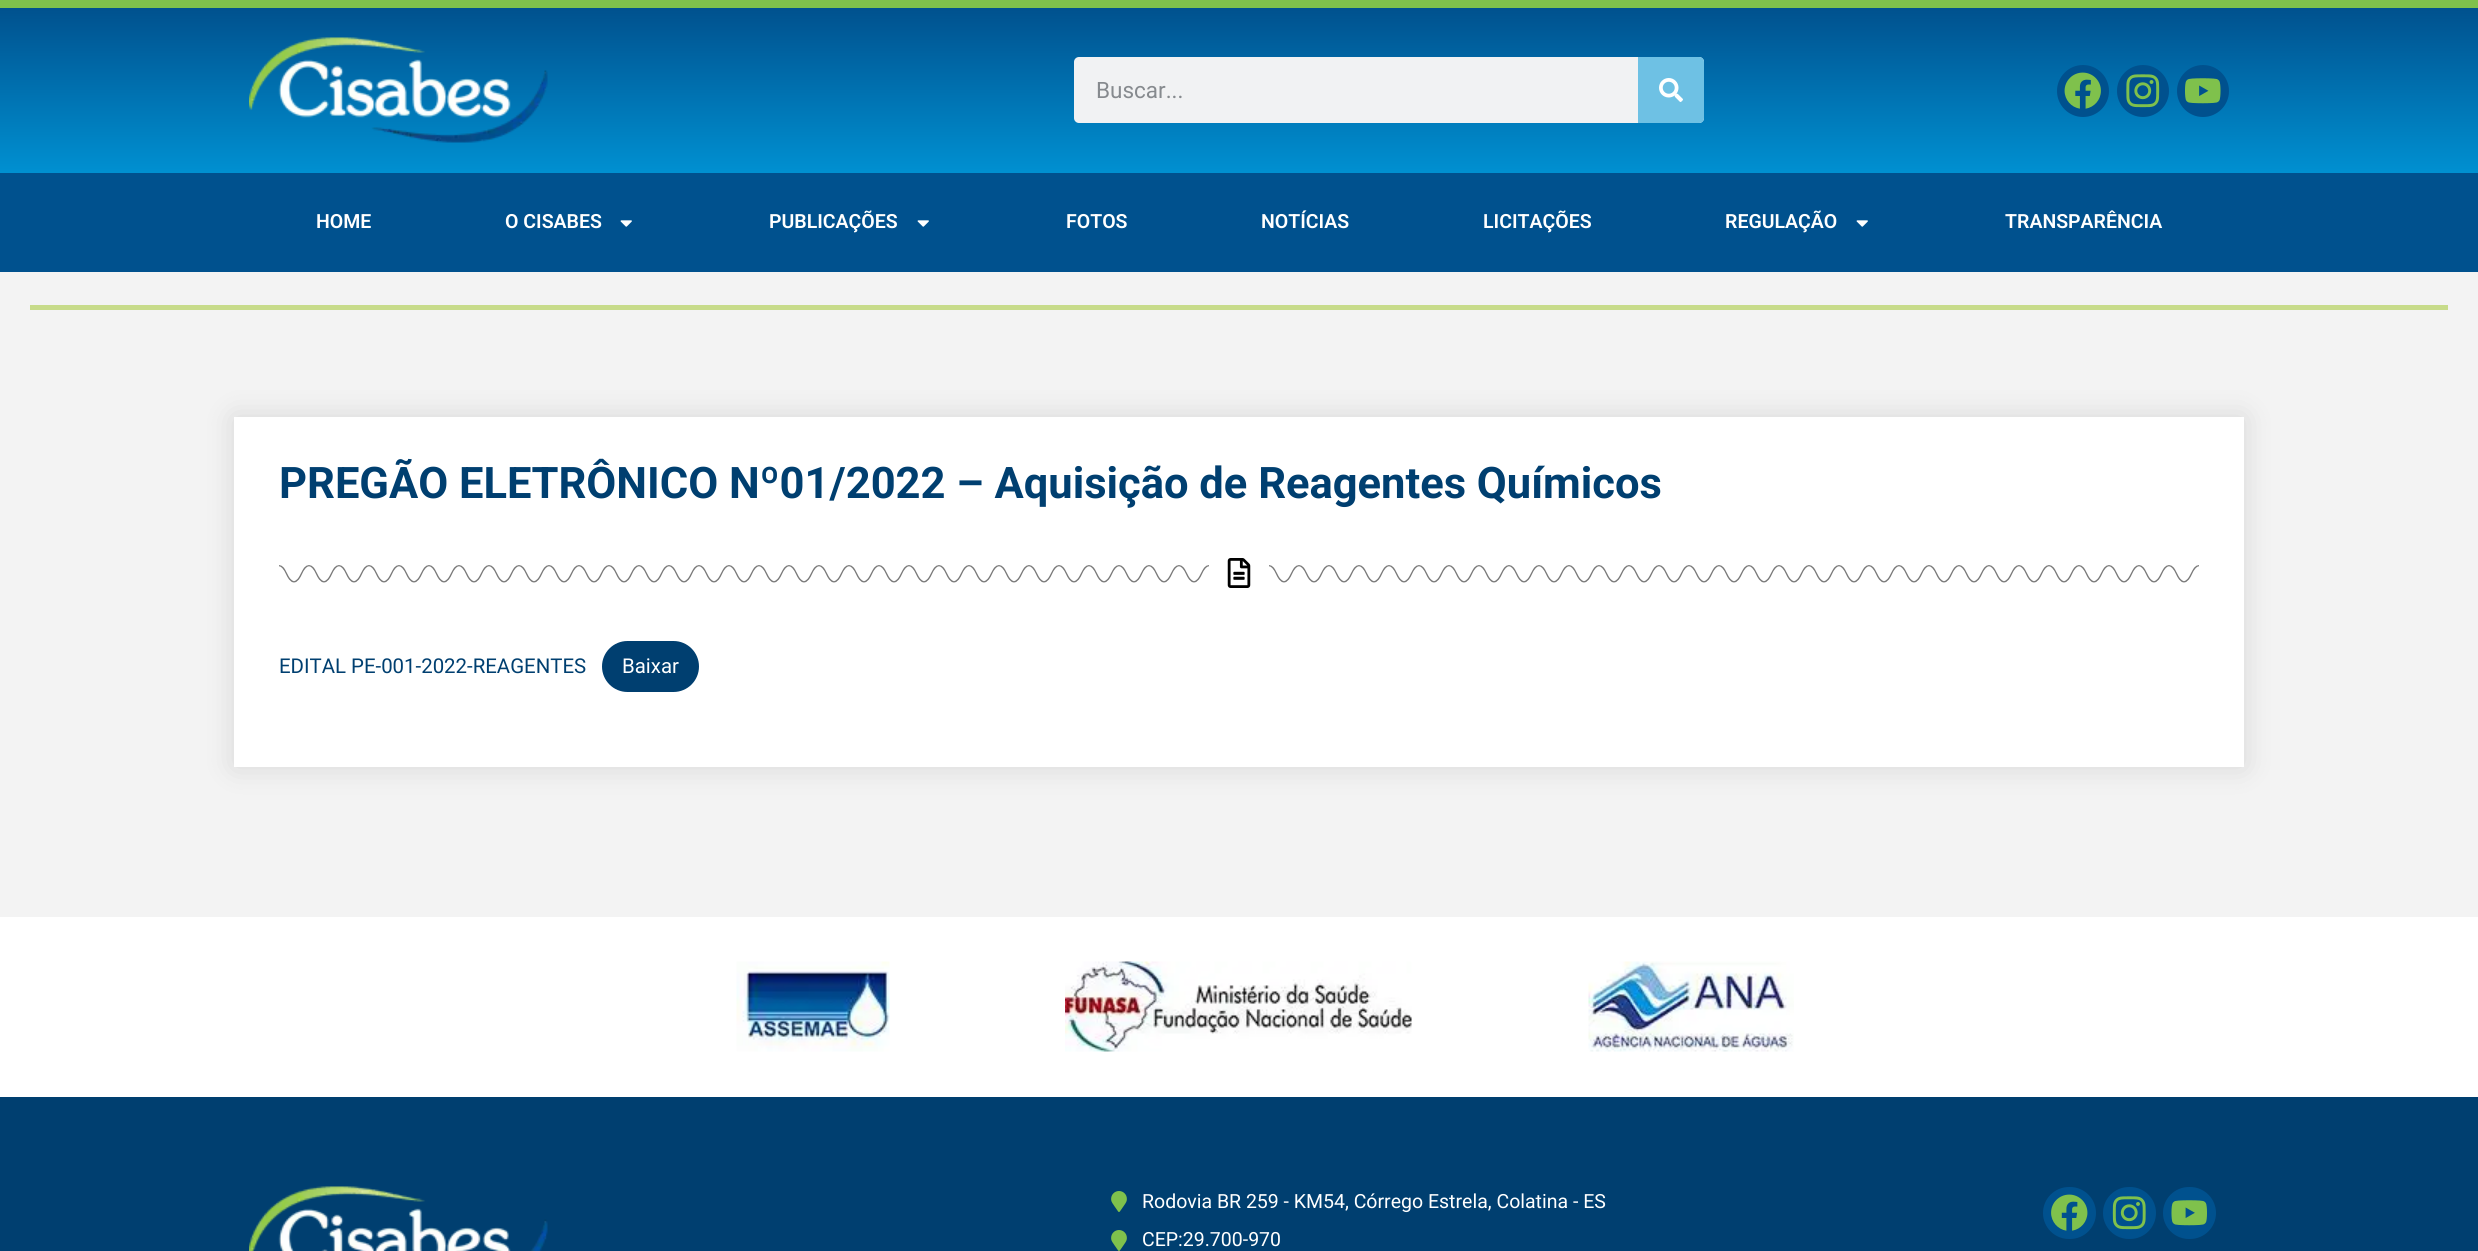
import math
import cairo

surface = cairo.ImageSurface(cairo.FORMAT_RGB24, 2478, 1251)
ctx = cairo.Context(surface)
options = cairo.FontOptions()
options.set_hint_metrics(cairo.HINT_METRICS_OFF)
options.set_hint_style(cairo.HINT_STYLE_NONE)
ctx.set_font_options(options)
ctx.set_miter_limit(4)


def set_color(code):
    ctx.set_source_rgb(*(v / 255 for v in bytes.fromhex(code[-6:])))


def draw_text(x, y, s, family, size, color, bold=False, italic=False):
    ctx.select_font_face(family, cairo.FONT_SLANT_ITALIC if italic else cairo.FONT_SLANT_NORMAL, cairo.FONT_WEIGHT_BOLD if bold else cairo.FONT_WEIGHT_NORMAL)
    ctx.set_font_size(size)
    set_color(color)
    ctx.move_to(x, y)
    ctx.show_text(s)


def fill_rect(x, y, w, h, color):
    set_color(color)
    ctx.rectangle(x, y, w, h)
    ctx.fill()


def rounded_rect(x, y, w, h, r):
    ctx.new_sub_path()
    for i, (u, v) in enumerate([(x + w - r, y + h - r), (x + r, y + h - r), (x + r, y + r), (x + w - r, y + r)]):
        ctx.arc(u, v, r, i * math.pi / 2, (i + 1) * math.pi / 2)
    ctx.close_path()


def draw_shadow(x, y, w, h, r, blur, alpha):
    ctx.push_group_with_content(cairo.CONTENT_ALPHA)
    ctx.set_operator(cairo.OPERATOR_SOURCE)
    for i in range(15, -16, -2):
        e = blur * i / 6
        if min(w, h) + 2 * e > 0:
            ctx.set_source_rgba(0, 0, 0, alpha * math.erfc((i - 1) / 8.5) / 2)
            rounded_rect(x - e, y - e, w + 2 * e, h + 2 * e, max(0, min(r + e + blur * .6, min(w, h) / 2 + e)))
            ctx.fill()
    ctx.mask(ctx.pop_group())


def draw_image(path, x, y, w, h):
    ctx.save()
    ctx.set_source_surface(cairo.ImageSurface.create_from_png(path), x, y)
    ctx.rectangle(x, y, w, h)
    ctx.fill()
    ctx.restore()


set_color("#f3f3f3")
ctx.paint()
gradient = cairo.LinearGradient(1239, 7.5, 1239, 173)
gradient.add_color_stop_rgba(0, 0, 0.318, 0.557, 1)
gradient.add_color_stop_rgba(1, 0, 0.565, 0.82, 1)
ctx.set_source(gradient)
ctx.rectangle(0, 8, 2478, 165)
ctx.fill()
fill_rect(0, 0, 2478, 8, "#7fc14c")
draw_image("assets/img1.png", 249, 37, 299, 106)
set_color("#f1f2f3")
rounded_rect(1074, 57, 630, 66, 5)
ctx.fill()
draw_text(1096, 98, "Buscar...", "Roboto", 22.5, "#868a8e")
set_color("#6ec1e4")
ctx.new_path()
ctx.move_to(1638, 57)
ctx.line_to(1699, 57)
ctx.curve_to(1702, 57, 1704, 59, 1704, 62)
ctx.line_to(1704, 118)
ctx.curve_to(1704, 121, 1702, 123, 1699, 123)
ctx.line_to(1638, 123)
ctx.close_path()
ctx.fill()
draw_image("assets/img2.png", 1659, 78, 24, 24)
set_color("#00518e")
ctx.arc(2083, 91, 26, 0, 2 * math.pi)
ctx.fill()
draw_image("assets/img3.png", 2064, 72, 37, 37)
ctx.arc(2143, 91, 26, 0, 2 * math.pi)
ctx.fill()
draw_image("assets/img4.png", 2126, 74, 34, 34)
ctx.arc(2203, 91, 26, 0, 2 * math.pi)
ctx.fill()
draw_image("assets/img5.png", 2185, 78, 36, 26)
fill_rect(0, 173, 2478, 99, "#00518e")
draw_text(316, 228, "HOME", "Roboto SemiBold", 19.5, "#ffffff")
draw_text(505, 228, "O CISABES", "Roboto SemiBold", 19.5, "#ffffff")
draw_image("assets/img6.png", 620, 220, 12, 7)
draw_text(769, 228, "PUBLICAÇÕES", "Roboto SemiBold", 19.5, "#ffffff")
draw_image("assets/img6.png", 917, 220, 12, 7)
draw_text(1066, 228, "FOTOS", "Roboto SemiBold", 19.5, "#ffffff")
draw_text(1261, 228, "NOTÍCIAS", "Roboto SemiBold", 19.5, "#ffffff")
draw_text(1483, 228, "LICITAÇÕES", "Roboto SemiBold", 19.5, "#ffffff")
draw_text(1725, 228, "REGULAÇÃO", "Roboto SemiBold", 19.5, "#ffffff")
draw_image("assets/img6.png", 1856, 220, 12, 7)
draw_text(2005, 228, "TRANSPARÊNCIA", "Roboto SemiBold", 19.5, "#ffffff")
fill_rect(30, 305, 2418, 5, "#c7db8a")
set_color("#000000")
draw_shadow(234, 417, 2010, 350, 0, 15, 0.12)
fill_rect(234, 417, 2010, 350, "#ffffff")
draw_text(279, 498, "PREGÃO ELETRÔNICO Nº01/2022 – Aquisição de Reagentes Químicos", "Roboto", 43.5, "#003f70", bold=True)
draw_image("assets/img7.png", 279, 565, 930, 18)
draw_image("assets/img8.png", 1227, 558, 24, 30)
draw_image("assets/img7.png", 1269, 565, 930, 18)
draw_text(279, 673, "EDITAL PE-001-2022-REAGENTES", "Roboto", 20.4, "#003f70")
rounded_rect(602, 641, 97, 51, 25.5)
ctx.fill()
draw_text(622, 673, "Baixar", "Roboto", 20.4, "#ffffff")
fill_rect(0, 917, 2478, 180, "#ffffff")
draw_image("assets/img9.png", 736, 961, 154, 91)
draw_image("assets/img10.png", 1065, 961, 347, 91)
draw_image("assets/img11.png", 1588, 961, 206, 91)
fill_rect(0, 1097, 2478, 154, "#003f70")
draw_image("assets/img12.png", 249, 1186, 299, 65)
draw_image("assets/img13.png", 1111, 1191, 16, 21)
draw_text(1142, 1208, "Rodovia BR 259 - KM54, Córrego Estrela, Colatina - ES", "Roboto", 19.5, "#ffffff")
draw_image("assets/img13.png", 1111, 1230, 16, 21)
draw_text(1142, 1246, "CEP:29.700-970", "Roboto", 19.5, "#ffffff")
set_color("#00518e")
rounded_rect(2043, 1187, 53, 52, 26)
ctx.fill()
draw_image("assets/img14.png", 2051, 1194, 37, 37)
rounded_rect(2103, 1187, 53, 52, 26)
ctx.fill()
draw_image("assets/img15.png", 2112, 1196, 34, 34)
rounded_rect(2163, 1187, 53, 52, 26)
ctx.fill()
draw_image("assets/img16.png", 2171, 1200, 36, 26)
surface.write_to_png("output.png")
